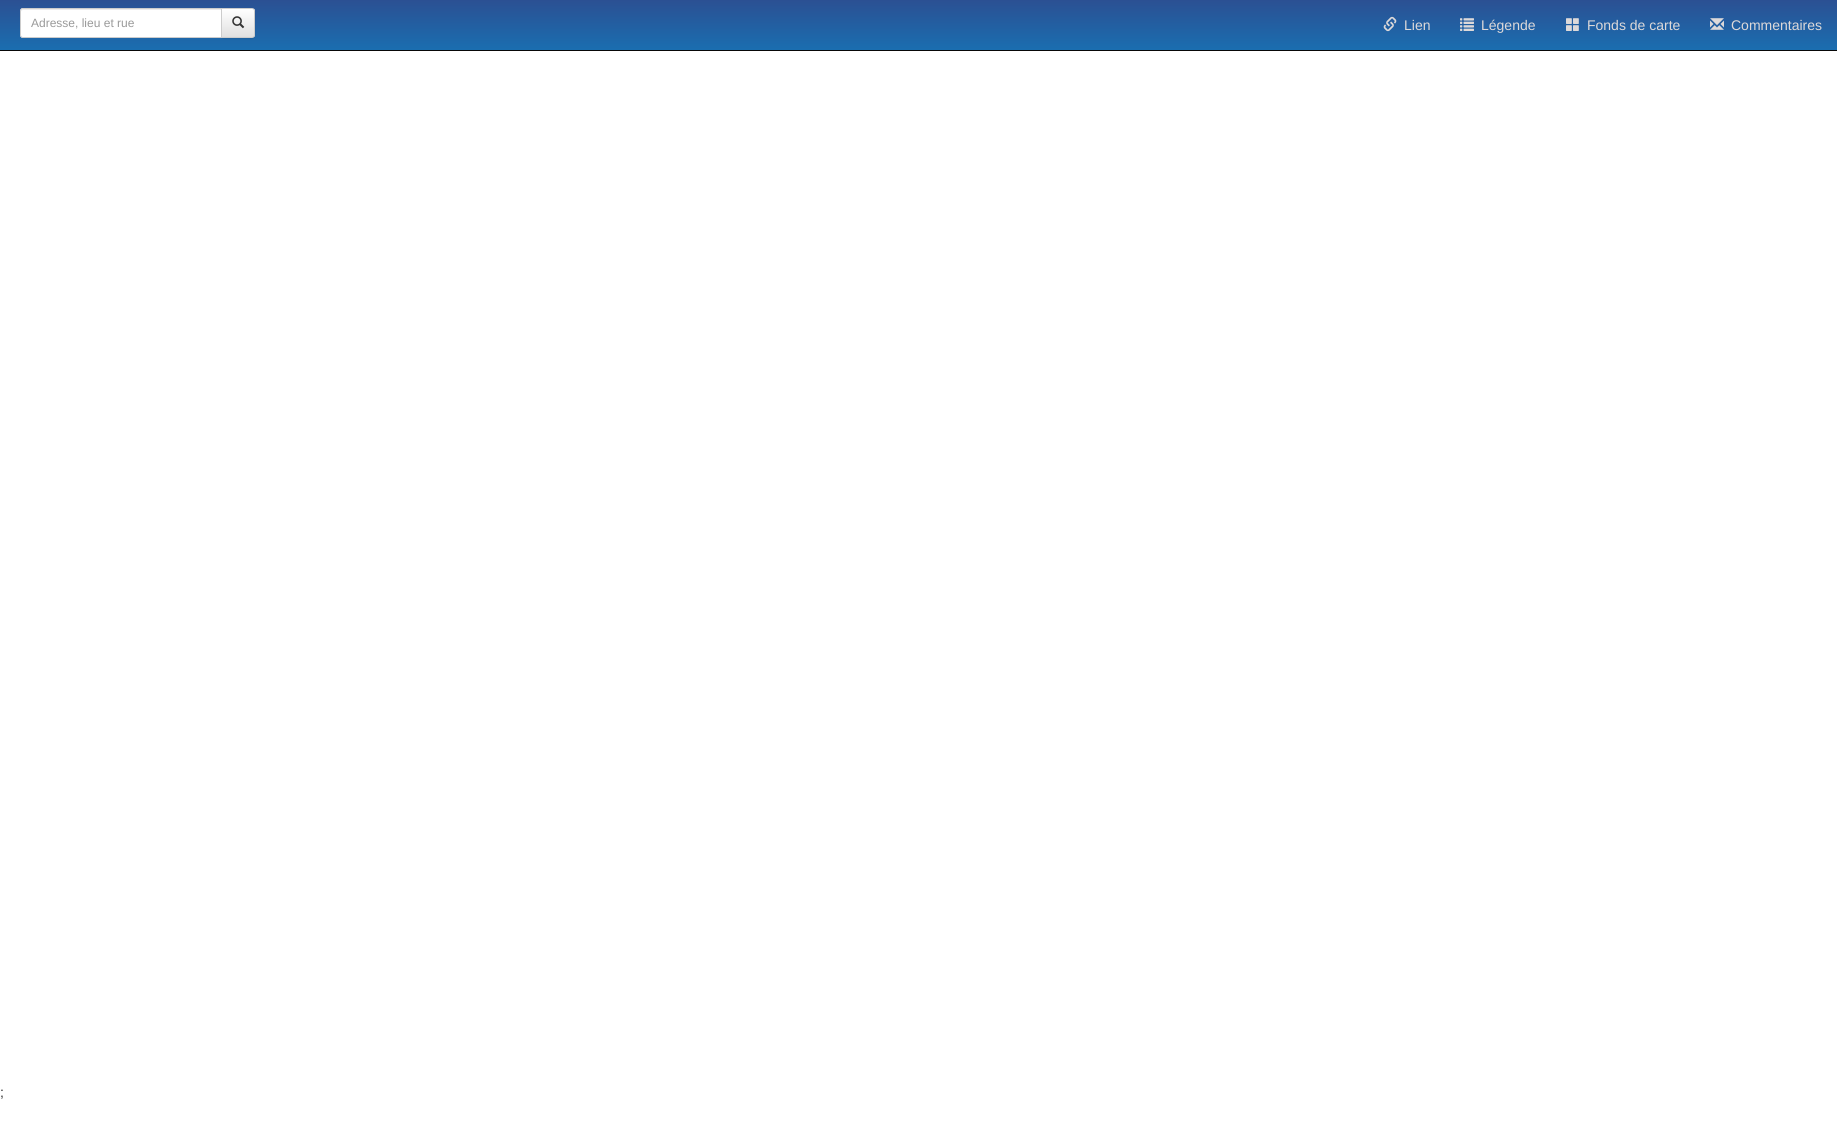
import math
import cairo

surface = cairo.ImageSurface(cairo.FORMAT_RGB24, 1837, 1142)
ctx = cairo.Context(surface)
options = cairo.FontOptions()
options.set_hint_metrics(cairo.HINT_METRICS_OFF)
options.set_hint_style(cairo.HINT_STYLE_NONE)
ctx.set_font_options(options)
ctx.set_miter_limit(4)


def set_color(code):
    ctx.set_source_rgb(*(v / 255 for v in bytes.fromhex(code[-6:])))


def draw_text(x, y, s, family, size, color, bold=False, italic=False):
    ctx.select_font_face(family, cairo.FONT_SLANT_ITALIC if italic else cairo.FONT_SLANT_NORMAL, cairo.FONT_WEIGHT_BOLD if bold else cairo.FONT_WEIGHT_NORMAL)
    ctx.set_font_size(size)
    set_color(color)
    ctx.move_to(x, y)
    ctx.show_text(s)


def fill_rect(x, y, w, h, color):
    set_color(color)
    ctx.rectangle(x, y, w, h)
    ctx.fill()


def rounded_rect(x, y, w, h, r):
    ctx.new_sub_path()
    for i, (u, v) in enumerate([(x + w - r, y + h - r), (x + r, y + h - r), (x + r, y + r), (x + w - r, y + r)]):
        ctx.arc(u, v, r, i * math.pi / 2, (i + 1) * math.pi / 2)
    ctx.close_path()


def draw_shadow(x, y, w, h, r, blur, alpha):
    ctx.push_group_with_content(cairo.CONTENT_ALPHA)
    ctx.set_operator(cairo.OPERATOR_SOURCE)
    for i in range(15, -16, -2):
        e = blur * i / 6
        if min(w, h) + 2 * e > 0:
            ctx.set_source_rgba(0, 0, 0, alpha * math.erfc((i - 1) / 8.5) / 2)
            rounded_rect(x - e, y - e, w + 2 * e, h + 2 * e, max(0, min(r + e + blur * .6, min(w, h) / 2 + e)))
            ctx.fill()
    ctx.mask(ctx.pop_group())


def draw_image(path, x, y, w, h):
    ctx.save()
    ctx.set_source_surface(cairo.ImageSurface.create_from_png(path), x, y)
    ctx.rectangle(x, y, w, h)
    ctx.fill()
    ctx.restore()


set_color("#ffffff")
ctx.paint()
gradient = cairo.LinearGradient(919, 0, 919, 50)
gradient.add_color_stop_rgba(0, 0.169, 0.314, 0.576, 1)
gradient.add_color_stop_rgba(1, 0.102, 0.431, 0.69, 1)
ctx.set_source(gradient)
ctx.rectangle(0, 0, 1837, 50)
ctx.fill()
fill_rect(0, 50, 1837, 1, "#080808")
set_color("#000000")
draw_shadow(221, 9, 34, 30, 3, 0.5, 0.07)
ctx.save()
ctx.new_path()
ctx.move_to(221, 8)
ctx.line_to(252, 8)
ctx.curve_to(253.5, 8, 255, 9.5, 255, 11)
ctx.line_to(255, 35)
ctx.curve_to(255, 36.5, 253.5, 38, 252, 38)
ctx.line_to(221, 38)
ctx.close_path()
ctx.clip()
gradient = cairo.LinearGradient(238, 9, 238, 37)
gradient.add_color_stop_rgba(0, 1, 1, 1, 1)
gradient.add_color_stop_rgba(1, 0.878, 0.878, 0.878, 1)
ctx.set_source(gradient)
ctx.rectangle(222, 9, 33, 28)
ctx.fill()
ctx.restore()
ctx.new_path()
ctx.move_to(221.5, 8.5)
ctx.line_to(252, 8.5)
ctx.curve_to(253.5, 8.5, 254.5, 9.5, 254.5, 11)
ctx.line_to(254.5, 35)
ctx.curve_to(254.5, 36.5, 253.5, 37.5, 252, 37.5)
ctx.line_to(221.5, 37.5)
ctx.close_path()
set_color("#cccccc")
ctx.set_line_width(1)
ctx.stroke()
set_color("#ffffff")
ctx.new_path()
ctx.move_to(23, 8)
ctx.line_to(222, 8)
ctx.line_to(222, 38)
ctx.line_to(23, 38)
ctx.curve_to(21.5, 38, 20, 36.5, 20, 35)
ctx.line_to(20, 11)
ctx.curve_to(20, 9.5, 21.5, 8, 23, 8)
ctx.close_path()
ctx.fill()
set_color("#ececec")
ctx.new_path()
ctx.move_to(23, 10)
ctx.line_to(221, 10)
ctx.line_to(221, 9)
ctx.line_to(23, 9)
ctx.curve_to(21, 9, 21, 11, 21, 12)
ctx.curve_to(21, 11, 22, 10, 23, 10)
ctx.close_path()
ctx.fill()
ctx.new_path()
ctx.move_to(23, 8.5)
ctx.line_to(221.5, 8.5)
ctx.line_to(221.5, 37.5)
ctx.line_to(23, 37.5)
ctx.curve_to(21.5, 37.5, 20.5, 36.5, 20.5, 35)
ctx.line_to(20.5, 11)
ctx.curve_to(20.5, 9.5, 21.5, 8.5, 23, 8.5)
ctx.close_path()
set_color("#cccccc")
ctx.stroke()
draw_text(31, 27, "Adresse, lieu et rue", "Liberation Sans", 12, "#999999")
draw_image("assets/img1.png", 232, 16, 13, 13)
draw_image("assets/img2.png", 1383, 16, 14, 16)
draw_text(1404, 30, "Lien", "Liberation Sans", 14, "#ddd9d9")
draw_image("assets/img3.png", 1460, 18, 14, 13)
draw_text(1481, 30, "Légende", "Liberation Sans", 14, "#ddd9d9")
draw_image("assets/img4.png", 1566, 18, 13, 13)
draw_text(1587, 30, "Fonds de carte", "Liberation Sans", 14, "#ddd9d9")
draw_image("assets/img5.png", 1710, 18, 14, 12)
draw_text(1731, 30, "Commentaires", "Liberation Sans", 14, "#ddd9d9")
draw_text(0, 1097, ";", "Liberation Sans", 14, "#333333")
surface.write_to_png("output.png")
